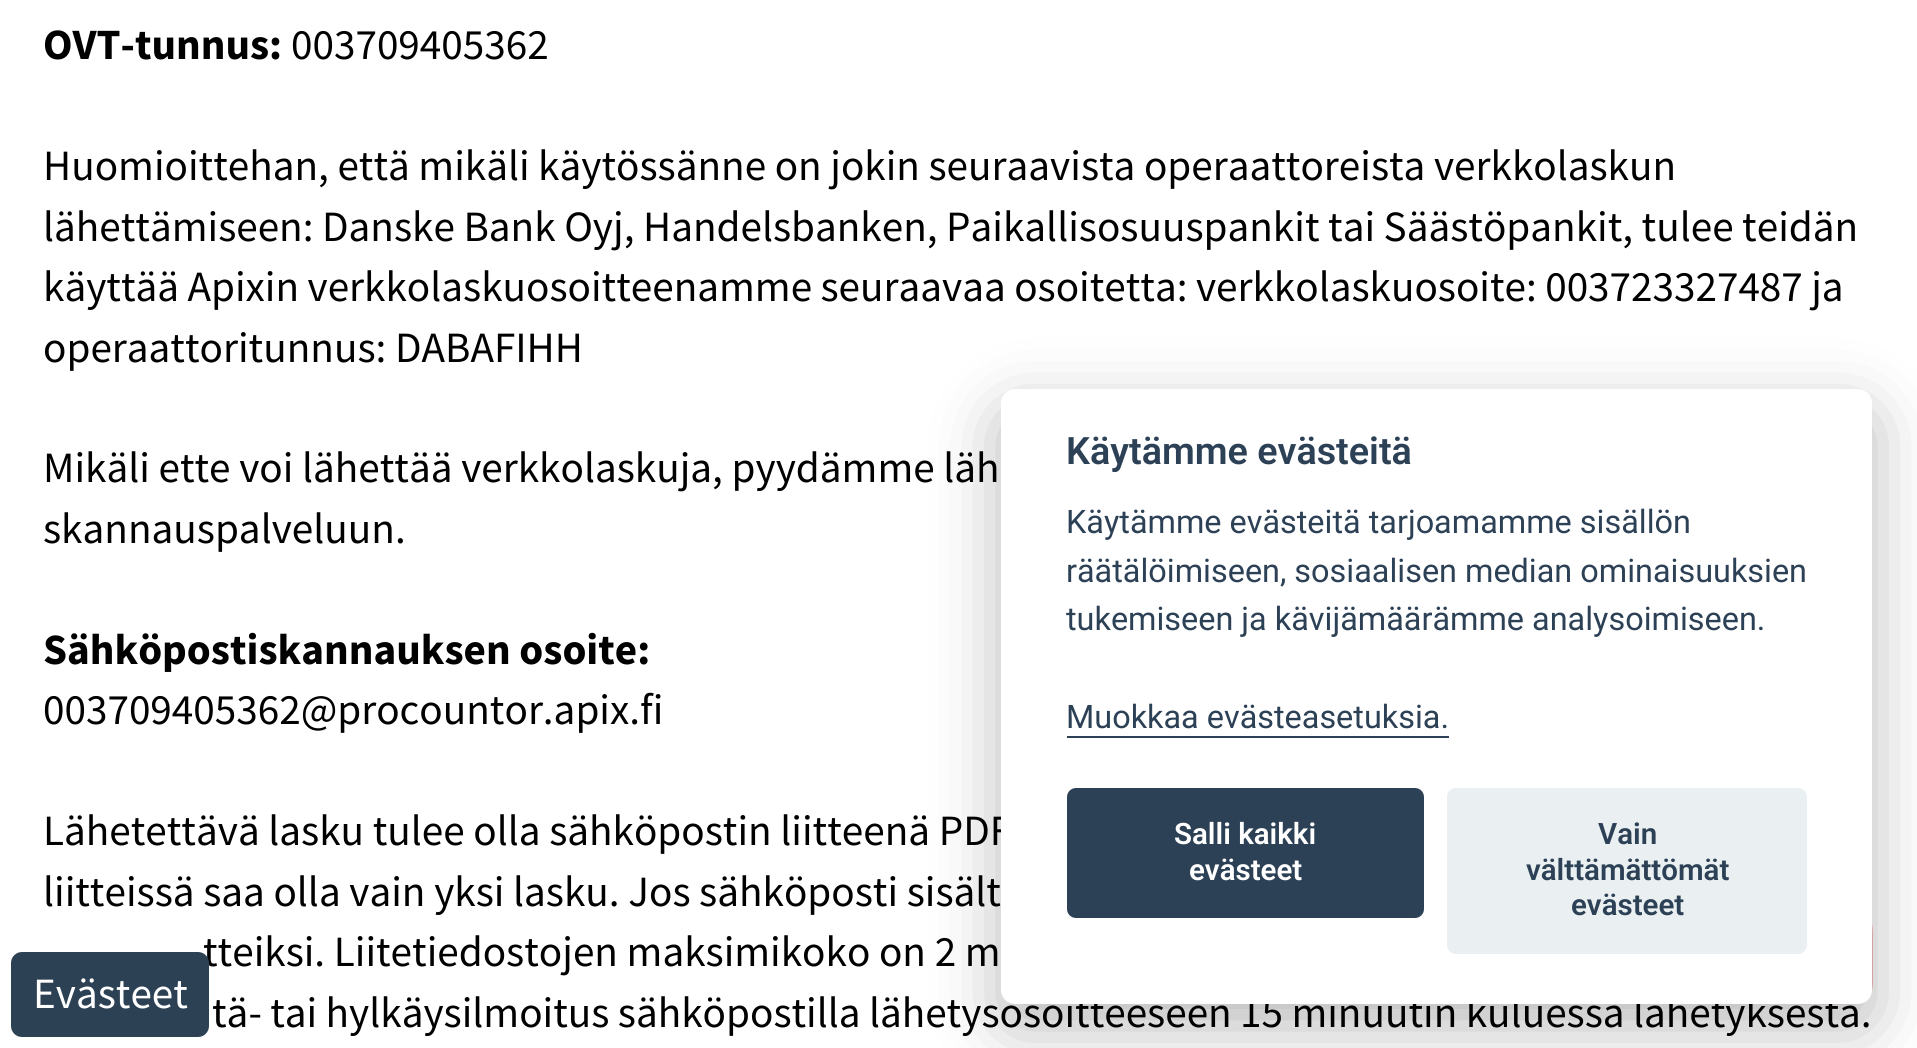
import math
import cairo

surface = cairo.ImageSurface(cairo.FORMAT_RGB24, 1917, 1048)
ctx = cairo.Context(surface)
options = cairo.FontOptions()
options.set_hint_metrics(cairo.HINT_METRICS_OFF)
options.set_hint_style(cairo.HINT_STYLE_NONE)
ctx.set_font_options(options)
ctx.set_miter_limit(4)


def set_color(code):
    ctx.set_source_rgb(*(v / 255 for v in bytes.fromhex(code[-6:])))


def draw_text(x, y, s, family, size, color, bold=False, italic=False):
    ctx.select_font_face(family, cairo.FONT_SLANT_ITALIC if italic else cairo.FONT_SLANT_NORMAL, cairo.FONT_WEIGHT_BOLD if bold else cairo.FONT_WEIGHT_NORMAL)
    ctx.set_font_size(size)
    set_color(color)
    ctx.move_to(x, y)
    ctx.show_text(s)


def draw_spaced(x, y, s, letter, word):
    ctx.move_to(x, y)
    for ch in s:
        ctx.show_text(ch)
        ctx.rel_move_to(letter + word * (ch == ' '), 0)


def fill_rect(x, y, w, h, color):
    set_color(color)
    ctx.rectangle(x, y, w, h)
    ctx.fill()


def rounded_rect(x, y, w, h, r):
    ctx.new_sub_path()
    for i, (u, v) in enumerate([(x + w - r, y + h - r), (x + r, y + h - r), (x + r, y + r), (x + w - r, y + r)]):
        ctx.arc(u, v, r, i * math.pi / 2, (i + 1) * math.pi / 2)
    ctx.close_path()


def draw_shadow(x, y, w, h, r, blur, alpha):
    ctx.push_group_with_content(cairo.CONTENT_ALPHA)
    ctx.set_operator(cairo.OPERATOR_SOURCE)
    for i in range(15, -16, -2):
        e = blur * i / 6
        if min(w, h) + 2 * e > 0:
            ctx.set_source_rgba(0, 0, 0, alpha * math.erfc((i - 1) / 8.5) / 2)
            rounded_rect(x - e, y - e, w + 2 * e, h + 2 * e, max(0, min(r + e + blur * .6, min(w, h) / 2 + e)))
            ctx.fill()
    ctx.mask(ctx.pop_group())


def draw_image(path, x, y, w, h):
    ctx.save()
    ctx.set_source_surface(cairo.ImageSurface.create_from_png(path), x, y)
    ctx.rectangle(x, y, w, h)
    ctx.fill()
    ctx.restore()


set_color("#ffffff")
ctx.paint()
draw_text(43, 59, "OVT-tunnus:", "Source Sans Pro", 43.2, "#000000", bold=True)
draw_text(291, 59, "003709405362", "Source Sans Pro", 43.2, "#000000")
draw_spaced(43, 180, "Huomioittehan, että mikäli käytössänne on jokin seuraavista operaattoreista verkkolaskun", 0, -0.1)
draw_spaced(43, 241, "lähettämiseen: Danske Bank Oyj, Handelsbanken, Paikallisosuuspankit tai Säästöpankit, tulee teidän", 0, -0.1)
draw_spaced(43, 301, "käyttää Apixin verkkolaskuosoitteenamme seuraavaa osoitetta: verkkolaskuosoite: 003723327487 ja", 0, -0.25)
draw_text(43, 362, "operaattoritunnus: DABAFIHH", "Source Sans Pro", 43.2, "#000000")
draw_text(43, 482, "Mikäli ette voi lähettää verkkolaskuja, pyydämme läh", "Source Sans Pro", 43.2, "#000000")
draw_text(43, 543, "skannauspalveluun.", "Source Sans Pro", 43.2, "#000000")
draw_text(43, 664, "Sähköpostiskannauksen osoite:", "Source Sans Pro", 43.2, "#000000", bold=True)
draw_text(43, 724, "003709405362@procountor.apix.fi", "Source Sans Pro", 43.2, "#000000")
draw_text(43, 845, "Lähetettävä lasku tulee olla sähköpostin liitteenä PDF", "Source Sans Pro", 43.2, "#000000")
draw_text(43, 906, "liitteissä saa olla vain yksi lasku. Jos sähköposti sisält", "Source Sans Pro", 43.2, "#000000")
draw_text(203, 966, "tteiksi. Liitetiedostojen maksimikoko on 2 m", "Source Sans Pro", 43.2, "#000000")
draw_spaced(212, 1027, "tä- tai hylkäysilmoitus sähköpostilla lähetysosoitteeseen 15 minuutin kuluessa lähetyksestä.", 0, -0.25)
draw_image("assets/img1.png", 1795, 924, 78, 81)
set_color("#020203")
draw_shadow(1001, 412, 871, 614, 14, 34, 0.28)
set_color("#ffffff")
rounded_rect(1001, 389, 871, 615, 14)
ctx.fill()
draw_text(1066, 464, "Käytämme evästeitä", "Roboto SemiBold", 37.75, "#2d4156")
draw_text(1066, 533, "Käytämme evästeitä tarjoamamme sisällön", "Roboto", 32.4, "#2d4156")
draw_text(1066, 582, "räätälöimiseen, sosiaalisen median ominaisuuksien", "Roboto", 32.4, "#2d4156")
draw_text(1066, 630, "tukemiseen ja kävijämäärämme analysoimiseen.", "Roboto", 32.4, "#2d4156")
draw_text(1066, 728, "Muokkaa evästeasetuksia.", "Roboto", 32.4, "#2d4156")
fill_rect(1067, 736, 382, 2, "#2d4156")
rounded_rect(1067, 788, 357, 130, 9)
ctx.fill()
draw_text(1174, 844, "Salli kaikki", "Roboto SemiBold", 29.5, "#ffffff")
draw_text(1189, 880, "evästeet", "Roboto SemiBold", 29.5, "#ffffff")
set_color("#eaeff2")
rounded_rect(1447, 788, 360, 166, 9)
ctx.fill()
draw_text(1598, 844, "Vain", "Roboto SemiBold", 29.5, "#2d4156")
draw_text(1526, 880, "välttämättömät", "Roboto SemiBold", 29.5, "#2d4156")
draw_text(1571, 915, "evästeet", "Roboto SemiBold", 29.5, "#2d4156")
set_color("#2d4155")
rounded_rect(11, 952, 198, 85, 11)
ctx.fill()
draw_text(33, 1008, "Evästeet", "Source Sans Pro", 43.2, "#ffffff")
surface.write_to_png("output.png")
